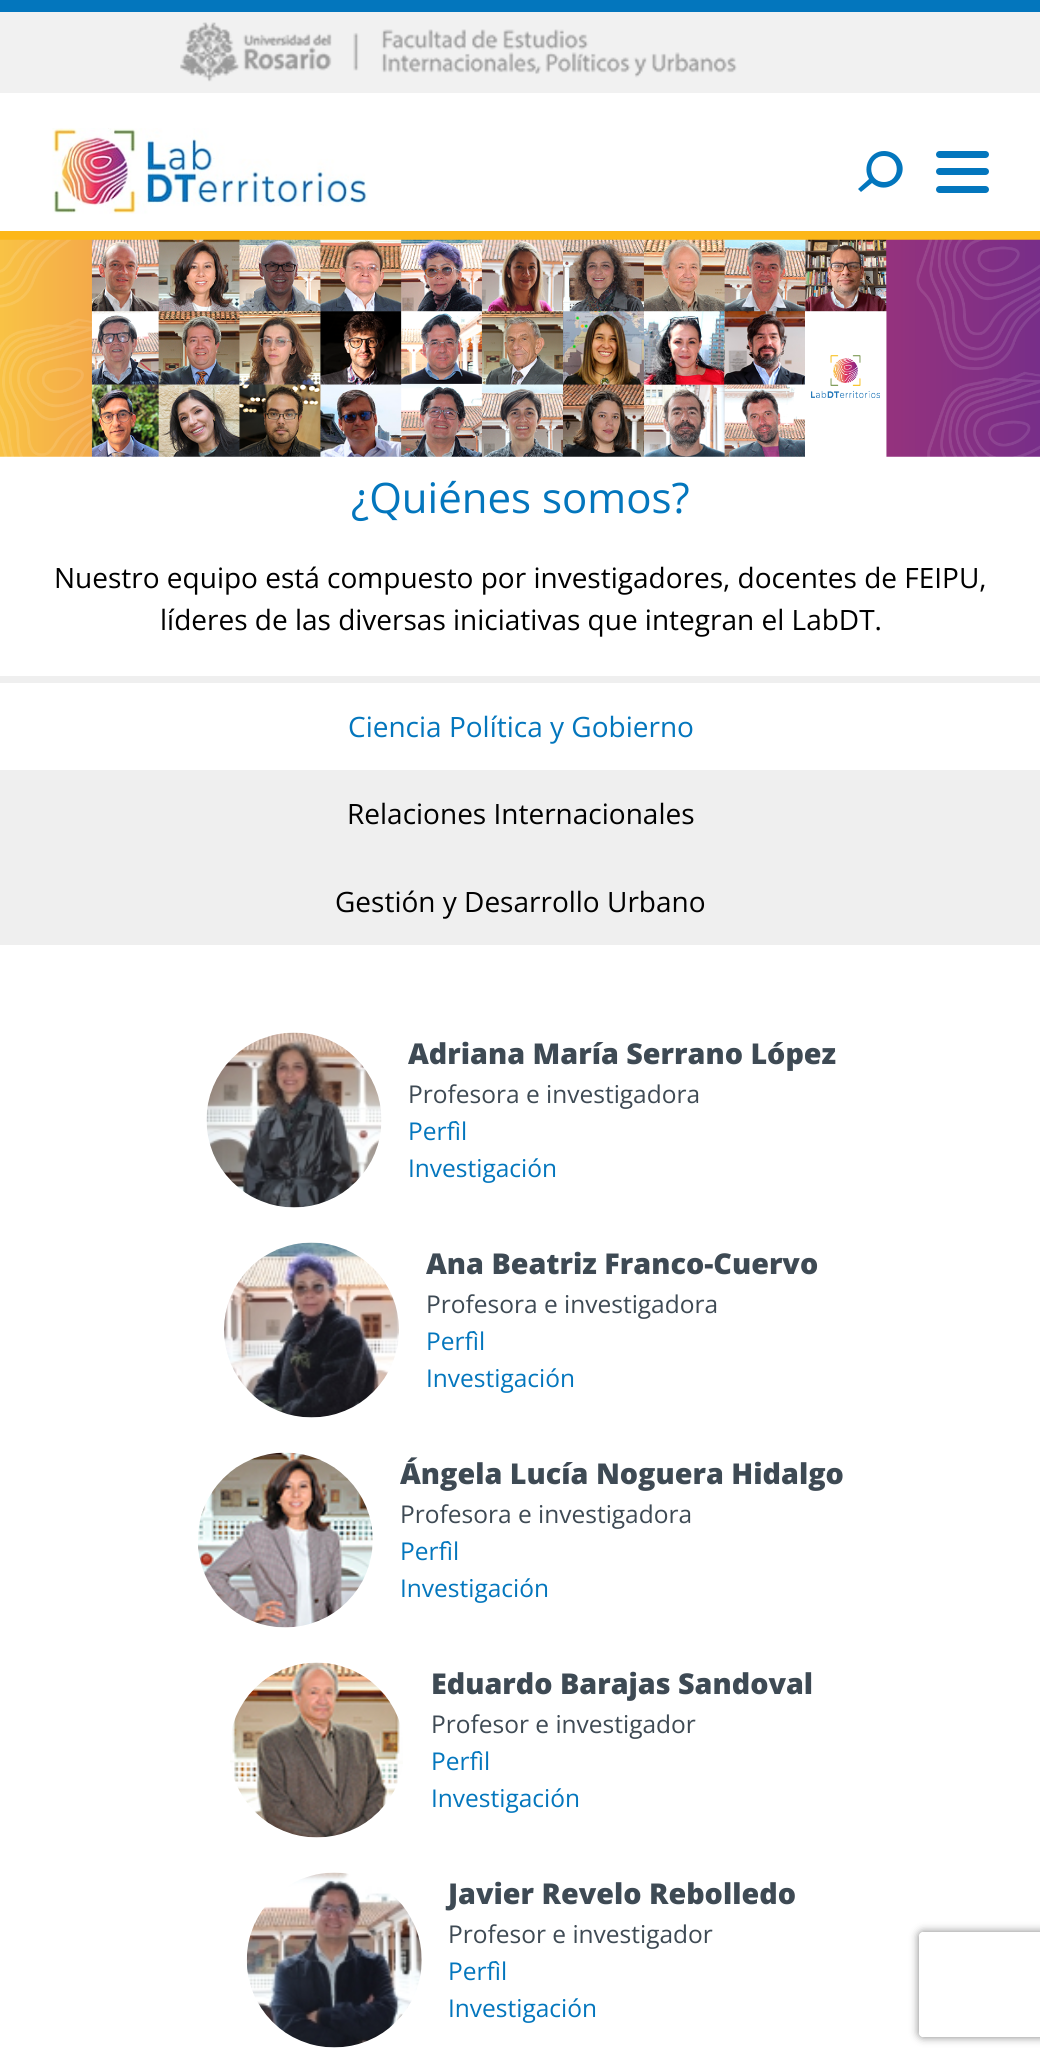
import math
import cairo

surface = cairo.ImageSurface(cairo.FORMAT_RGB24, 1040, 2061)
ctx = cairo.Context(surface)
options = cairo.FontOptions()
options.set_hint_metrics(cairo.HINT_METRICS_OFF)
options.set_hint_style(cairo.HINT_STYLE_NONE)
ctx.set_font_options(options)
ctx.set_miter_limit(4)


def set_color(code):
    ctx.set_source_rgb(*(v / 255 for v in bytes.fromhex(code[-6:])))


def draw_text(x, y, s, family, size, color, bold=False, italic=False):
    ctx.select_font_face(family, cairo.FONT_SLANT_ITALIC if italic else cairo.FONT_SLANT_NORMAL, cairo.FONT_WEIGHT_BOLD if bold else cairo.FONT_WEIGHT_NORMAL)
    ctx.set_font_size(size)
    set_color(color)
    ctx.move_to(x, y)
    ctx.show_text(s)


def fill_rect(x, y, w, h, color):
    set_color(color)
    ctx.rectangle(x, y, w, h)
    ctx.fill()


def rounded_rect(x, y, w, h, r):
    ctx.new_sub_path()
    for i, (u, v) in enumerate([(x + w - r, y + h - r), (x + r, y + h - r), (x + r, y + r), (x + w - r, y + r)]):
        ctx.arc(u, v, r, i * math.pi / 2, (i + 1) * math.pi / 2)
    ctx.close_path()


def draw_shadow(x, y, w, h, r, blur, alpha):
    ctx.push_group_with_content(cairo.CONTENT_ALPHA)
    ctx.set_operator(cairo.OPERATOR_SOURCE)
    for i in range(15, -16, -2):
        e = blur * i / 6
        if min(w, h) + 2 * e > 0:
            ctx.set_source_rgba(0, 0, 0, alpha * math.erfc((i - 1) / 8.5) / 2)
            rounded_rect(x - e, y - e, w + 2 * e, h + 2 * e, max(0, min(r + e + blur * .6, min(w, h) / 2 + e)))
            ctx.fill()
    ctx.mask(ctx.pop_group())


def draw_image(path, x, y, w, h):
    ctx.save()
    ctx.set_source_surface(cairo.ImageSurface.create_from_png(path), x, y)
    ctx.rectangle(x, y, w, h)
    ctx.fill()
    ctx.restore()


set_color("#ffffff")
ctx.paint()
fill_rect(0, 12, 1040, 81, "#f1f1f1")
fill_rect(0, 0, 1040, 12, "#0376bd")
draw_image("assets/img1.png", 180, 22, 557, 60)
fill_rect(0, 231, 1040, 9, "#fdb719")
draw_image("assets/img2.png", 52, 128, 316, 86)
set_color("#0376bd")
ctx.new_path()
ctx.move_to(884, 151)
ctx.curve_to(870, 151, 862, 167, 869, 179)
ctx.line_to(858, 189)
ctx.line_to(861, 192)
ctx.line_to(872, 183)
ctx.curve_to(889, 198, 914, 173, 897, 156)
ctx.curve_to(894, 153, 889, 151, 884, 151)
ctx.close_path()
ctx.move_to(884, 182)
ctx.curve_to(867, 182, 867, 156, 884, 156)
ctx.curve_to(901, 156, 901, 182, 884, 182)
ctx.close_path()
ctx.fill()
rounded_rect(936, 151, 53, 7, 3.5)
ctx.fill()
rounded_rect(936, 168, 53, 7, 3.5)
ctx.fill()
rounded_rect(936, 186, 53, 7, 3.5)
ctx.fill()
draw_image("assets/img3.png", 0, 239, 1040, 218)
draw_text(351, 513, "¿Quiénes somos?", "Open Sans", 42, "#0376bd")
draw_text(54, 588, "Nuestro equipo está compuesto por investigadores, docentes de FEIPU,", "Open Sans", 28, "#000000")
draw_text(160, 630, "líderes de las diversas iniciativas que integran el LabDT.", "Open Sans", 28, "#000000")
fill_rect(0, 770, 1040, 175, "#efefef")
fill_rect(0, 676, 1040, 7, "#efefef")
draw_text(348, 737, "Ciencia Política y Gobierno", "Open Sans", 28, "#0376bd")
draw_text(347, 824, "Relaciones Internacionales", "Open Sans", 28, "#000000")
draw_text(335, 912, "Gestión y Desarrollo Urbano", "Open Sans", 28, "#000000")
draw_image("assets/img4.png", 206, 1032, 176, 176)
draw_text(408, 1064, "Adriana María Serrano López", "Open Sans ExtraBold", 28.7, "#3e4a54")
draw_text(408, 1103, "Profesora e investigadora", "Open Sans", 24.5, "#3e4a54")
draw_text(408, 1140, "Perfìl", "Open Sans", 24.5, "#0376bd")
draw_text(408, 1177, "Investigación", "Open Sans", 24.5, "#0376bd")
draw_image("assets/img5.png", 224, 1242, 175, 176)
draw_text(426, 1274, "Ana Beatriz Franco-Cuervo", "Open Sans ExtraBold", 28.7, "#3e4a54")
draw_text(426, 1313, "Profesora e investigadora", "Open Sans", 24.5, "#3e4a54")
draw_text(426, 1350, "Perfìl", "Open Sans", 24.5, "#0376bd")
draw_text(426, 1387, "Investigación", "Open Sans", 24.5, "#0376bd")
draw_image("assets/img6.png", 198, 1452, 175, 176)
draw_text(400, 1484, "Ángela Lucía Noguera Hidalgo", "Open Sans ExtraBold", 28.7, "#3e4a54")
draw_text(400, 1523, "Profesora e investigadora", "Open Sans", 24.5, "#3e4a54")
draw_text(400, 1560, "Perfìl", "Open Sans", 24.5, "#0376bd")
draw_text(400, 1597, "Investigación", "Open Sans", 24.5, "#0376bd")
draw_image("assets/img7.png", 230, 1662, 173, 176)
draw_text(431, 1694, "Eduardo Barajas Sandoval", "Open Sans ExtraBold", 28.7, "#3e4a54")
draw_text(431, 1733, "Profesor e investigador", "Open Sans", 24.5, "#3e4a54")
draw_text(431, 1770, "Perfìl", "Open Sans", 24.5, "#0376bd")
draw_text(431, 1807, "Investigación", "Open Sans", 24.5, "#0376bd")
draw_image("assets/img8.png", 246, 1872, 176, 176)
draw_text(448, 1904, "Javier Revelo Rebolledo", "Open Sans ExtraBold", 28.7, "#3e4a54")
draw_text(448, 1943, "Profesor e investigador", "Open Sans", 24.5, "#3e4a54")
draw_text(448, 1980, "Perfìl", "Open Sans", 24.5, "#0376bd")
draw_text(448, 2017, "Investigación", "Open Sans", 24.5, "#0376bd")
ctx.save()
ctx.set_fill_rule(cairo.FILL_RULE_EVEN_ODD)
ctx.new_path()
ctx.move_to(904, 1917)
ctx.line_to(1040, 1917)
ctx.line_to(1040, 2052)
ctx.line_to(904, 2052)
ctx.close_path()
ctx.move_to(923, 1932)
ctx.line_to(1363, 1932)
ctx.curve_to(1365, 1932, 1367, 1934, 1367, 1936)
ctx.line_to(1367, 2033)
ctx.curve_to(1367, 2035, 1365, 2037, 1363, 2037)
ctx.line_to(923, 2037)
ctx.curve_to(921, 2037, 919, 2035, 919, 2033)
ctx.line_to(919, 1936)
ctx.curve_to(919, 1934, 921, 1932, 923, 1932)
ctx.close_path()
ctx.clip()
set_color("#808080")
draw_shadow(919, 1932, 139, 105, 4, 4.5, 1)
ctx.restore()
surface.write_to_png("output.png")
